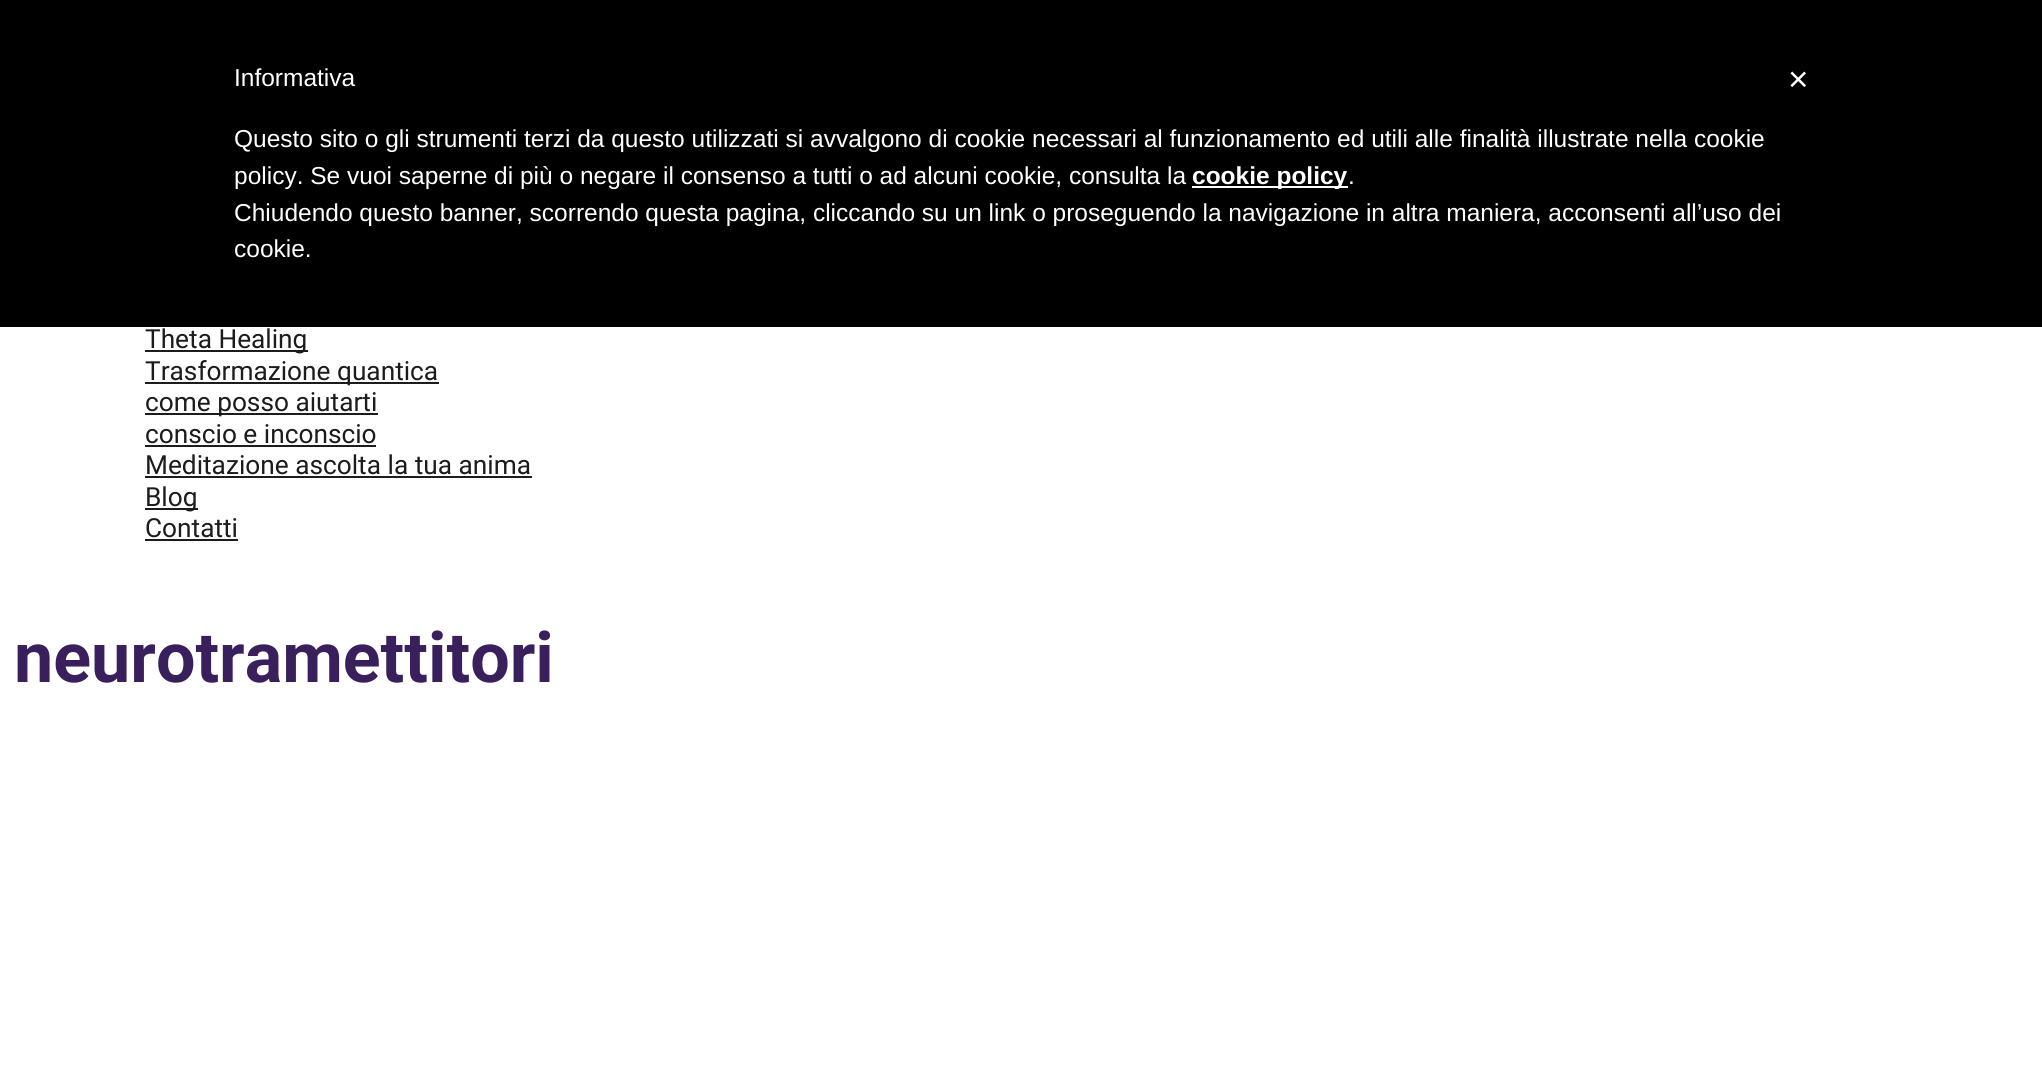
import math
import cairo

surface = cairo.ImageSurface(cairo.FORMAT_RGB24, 2042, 1078)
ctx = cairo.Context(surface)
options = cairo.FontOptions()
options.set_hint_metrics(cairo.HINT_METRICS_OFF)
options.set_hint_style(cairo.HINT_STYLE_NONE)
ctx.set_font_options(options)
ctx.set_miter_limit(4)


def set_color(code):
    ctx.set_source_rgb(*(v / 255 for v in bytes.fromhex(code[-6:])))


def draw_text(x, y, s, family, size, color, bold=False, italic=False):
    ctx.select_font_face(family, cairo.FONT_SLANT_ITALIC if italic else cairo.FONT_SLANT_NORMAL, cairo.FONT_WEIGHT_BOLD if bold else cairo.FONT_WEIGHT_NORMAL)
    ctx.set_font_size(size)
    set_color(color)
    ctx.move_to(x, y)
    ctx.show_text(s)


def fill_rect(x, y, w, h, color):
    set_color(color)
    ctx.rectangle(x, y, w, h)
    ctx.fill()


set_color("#ffffff")
ctx.paint()
fill_rect(0, 0, 2042, 327, "#000000")
draw_text(234, 86, "Informativa", "Liberation Sans", 24.5, "#ffffff")
draw_text(234, 147, "Questo sito o gli strumenti terzi da questo utilizzati si avvalgono di cookie necessari al funzionamento ed utili alle finalità illustrate nella cookie", "Liberation Sans", 24.5, "#ffffff")
draw_text(234, 184, "policy. Se vuoi saperne di più o negare il consenso a tutti o ad alcuni cookie, consulta la", "Liberation Sans", 24.5, "#ffffff")
fill_rect(1192, 186, 156, 2, "#ffffff")
draw_text(1192, 184, "cookie policy", "Liberation Sans", 24.5, "#ffffff", bold=True)
draw_text(1348, 184, ".", "Liberation Sans", 24.5, "#ffffff")
draw_text(234, 221, "Chiudendo questo banner, scorrendo questa pagina, cliccando su un link o proseguendo la navigazione in altra maniera, acconsenti all’uso dei", "Liberation Sans", 24.5, "#ffffff")
draw_text(234, 257, "cookie.", "Liberation Sans", 24.5, "#ffffff")
draw_text(1788, 91, "×", "Liberation Sans", 35, "#ffffff")
fill_rect(145, 350, 163, 2, "#1c1c1c")
draw_text(145, 348, "Theta Healing", "Roboto", 26.25, "#1c1c1c")
fill_rect(145, 382, 294, 2, "#1c1c1c")
draw_text(145, 380, "Trasformazione quantica", "Roboto", 26.25, "#1c1c1c")
fill_rect(145, 413, 233, 2, "#1c1c1c")
draw_text(145, 411, "come posso aiutarti", "Roboto", 26.25, "#1c1c1c")
draw_text(145, 443, "conscio e inconscio", "Roboto", 26.25, "#1c1c1c")
fill_rect(145, 445, 231, 2, "#1c1c1c")
draw_text(145, 474, "Meditazione ascolta la tua anima", "Roboto", 26.25, "#1c1c1c")
fill_rect(145, 476, 387, 2, "#1c1c1c")
fill_rect(145, 508, 53, 2, "#1c1c1c")
draw_text(145, 506, "Blog", "Roboto", 26.25, "#1c1c1c")
draw_text(145, 537, "Contatti", "Roboto", 26.25, "#1c1c1c")
fill_rect(145, 539, 93, 2, "#1c1c1c")
draw_text(14, 682, "neurotramettitori", "Roboto", 70, "#39205d", bold=True)
surface.write_to_png("output.png")
